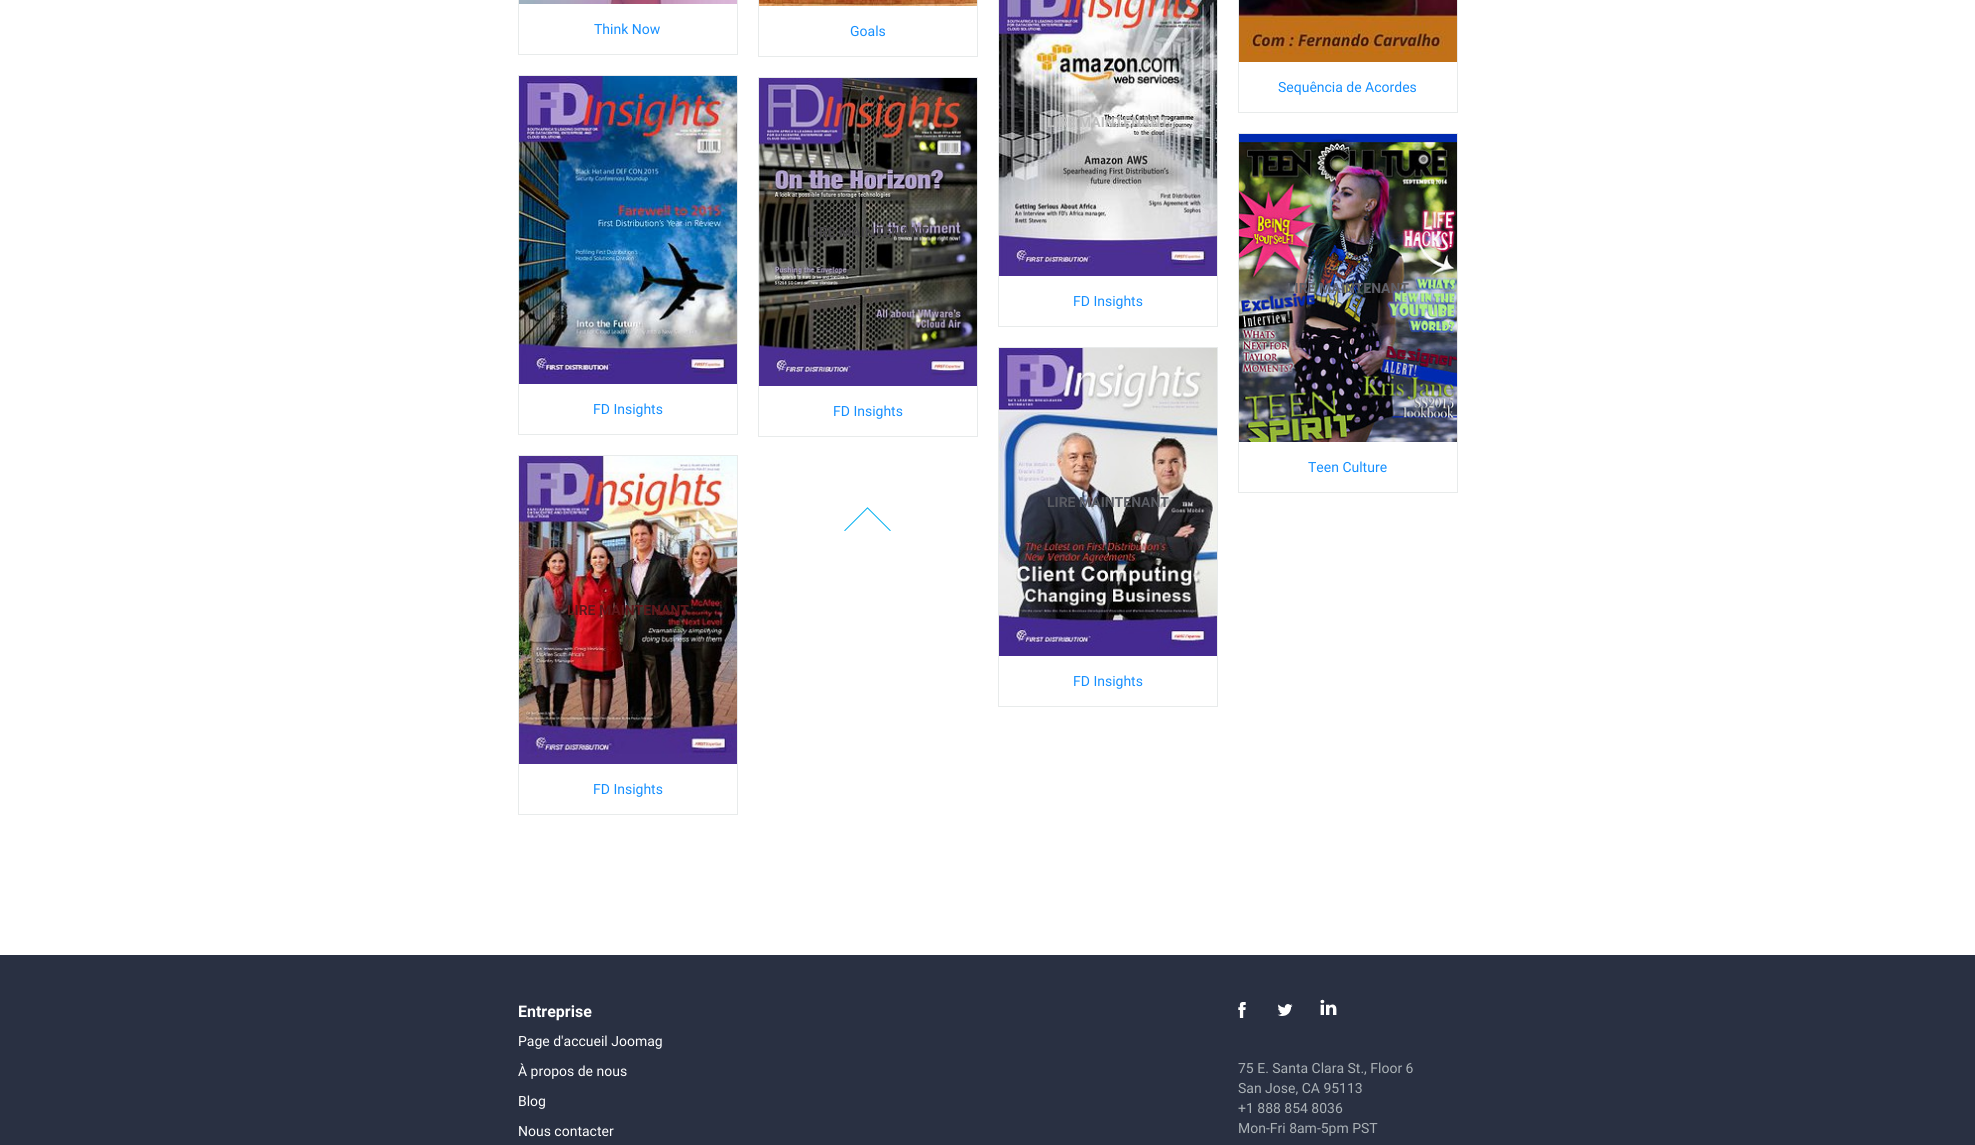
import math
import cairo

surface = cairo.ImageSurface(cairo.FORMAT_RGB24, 1975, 1145)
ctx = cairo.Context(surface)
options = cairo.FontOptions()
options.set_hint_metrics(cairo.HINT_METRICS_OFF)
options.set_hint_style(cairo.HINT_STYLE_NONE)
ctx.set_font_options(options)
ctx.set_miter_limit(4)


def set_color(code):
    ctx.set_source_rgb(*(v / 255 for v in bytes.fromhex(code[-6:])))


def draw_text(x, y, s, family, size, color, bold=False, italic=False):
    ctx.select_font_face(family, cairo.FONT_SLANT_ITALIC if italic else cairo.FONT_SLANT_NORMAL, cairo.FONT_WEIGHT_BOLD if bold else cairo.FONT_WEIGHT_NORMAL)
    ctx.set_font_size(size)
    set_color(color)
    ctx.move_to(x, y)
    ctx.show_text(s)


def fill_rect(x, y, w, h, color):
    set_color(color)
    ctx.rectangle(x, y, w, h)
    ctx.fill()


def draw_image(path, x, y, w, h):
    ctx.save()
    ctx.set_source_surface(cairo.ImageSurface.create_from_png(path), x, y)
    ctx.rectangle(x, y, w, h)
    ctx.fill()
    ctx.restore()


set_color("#ffffff")
ctx.paint()
ctx.rectangle(518.5, -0.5, 219, 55)
set_color("#e8ebeb")
ctx.set_line_width(1)
ctx.stroke()
draw_image("assets/img1.png", 519, 0, 218, 4)
draw_text(594, 34, "Think Now", "Roboto", 14, "#158fff")
ctx.rectangle(758.5, -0.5, 219, 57)
set_color("#e8ebeb")
ctx.stroke()
draw_image("assets/img2.png", 759, 0, 218, 6)
draw_text(850, 36, "Goals", "Roboto", 14, "#158fff")
ctx.rectangle(1238.5, -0.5, 219, 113)
set_color("#e8ebeb")
ctx.stroke()
draw_image("assets/img3.png", 1239, 0, 218, 62)
draw_text(1278, 92, "Sequência de Acordes", "Roboto", 14, "#158fff")
ctx.rectangle(518.5, 75.5, 219, 359)
set_color("#e8ebeb")
ctx.stroke()
draw_image("assets/img4.png", 519, 76, 218, 308)
draw_text(593, 414, "FD Insights", "Roboto", 14, "#158fff")
ctx.rectangle(758.5, 77.5, 219, 359)
set_color("#e8ebeb")
ctx.stroke()
draw_image("assets/img5.png", 759, 78, 218, 308)
draw_text(807, 237, "LIRE MAINTENANT", "Roboto", 14, "#49474a", bold=True)
draw_text(833, 416, "FD Insights", "Roboto", 14, "#158fff")
ctx.rectangle(998.5, -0.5, 219, 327)
set_color("#e8ebeb")
ctx.stroke()
draw_image("assets/img6.png", 999, 0, 218, 276)
draw_text(1047, 127, "LIRE MAINTENANT", "Roboto", 14, "#bebebe", bold=True)
draw_text(1073, 306, "FD Insights", "Roboto", 14, "#158fff")
ctx.rectangle(1238.5, 133.5, 219, 359)
set_color("#e8ebeb")
ctx.stroke()
draw_image("assets/img7.png", 1239, 134, 218, 308)
draw_text(1287, 293, "LIRE MAINTENANT", "Roboto", 14, "#5e5f68", bold=True)
draw_text(1308, 472, "Teen Culture", "Roboto", 14, "#158fff")
draw_image("assets/img8.png", 844, 507, 47, 24)
ctx.rectangle(998.5, 347.5, 219, 359)
set_color("#e8ebeb")
ctx.stroke()
draw_image("assets/img9.png", 999, 348, 218, 308)
draw_text(1047, 507, "LIRE MAINTENANT", "Roboto", 14, "#595b62", bold=True)
draw_text(1073, 686, "FD Insights", "Roboto", 14, "#158fff")
ctx.rectangle(518.5, 455.5, 219, 359)
set_color("#e8ebeb")
ctx.stroke()
draw_image("assets/img10.png", 519, 456, 218, 308)
draw_text(567, 615, "LIRE MAINTENANT", "Roboto", 14, "#5e181b", bold=True)
draw_text(593, 794, "FD Insights", "Roboto", 14, "#158fff")
fill_rect(0, 955, 1975, 190, "#293042")
draw_text(518, 1017, "Entreprise", "Roboto", 16, "#ffffff", bold=True)
draw_text(518, 1046, "Page d'accueil Joomag", "Roboto", 14, "#ffffff")
draw_text(518, 1076, "À propos de nous", "Roboto", 14, "#ffffff")
draw_text(518, 1106, "Blog", "Roboto", 14, "#ffffff")
draw_text(518, 1136, "Nous contacter", "Roboto", 14, "#ffffff")
draw_image("assets/img11.png", 1238, 1002, 8, 16)
draw_image("assets/img12.png", 1277, 1004, 16, 12)
draw_image("assets/img13.png", 1320, 999, 17, 16)
draw_text(1238, 1073, "75 E. Santa Clara St., Floor 6", "Roboto", 14, "#abb2b6")
draw_text(1238, 1093, "San Jose, CA 95113", "Roboto", 14, "#abb2b6")
draw_text(1238, 1113, "+1 888 854 8036", "Roboto", 14, "#abb2b6")
draw_text(1238, 1133, "Mon-Fri 8am-5pm PST", "Roboto", 14, "#abb2b6")
surface.write_to_png("output.png")
